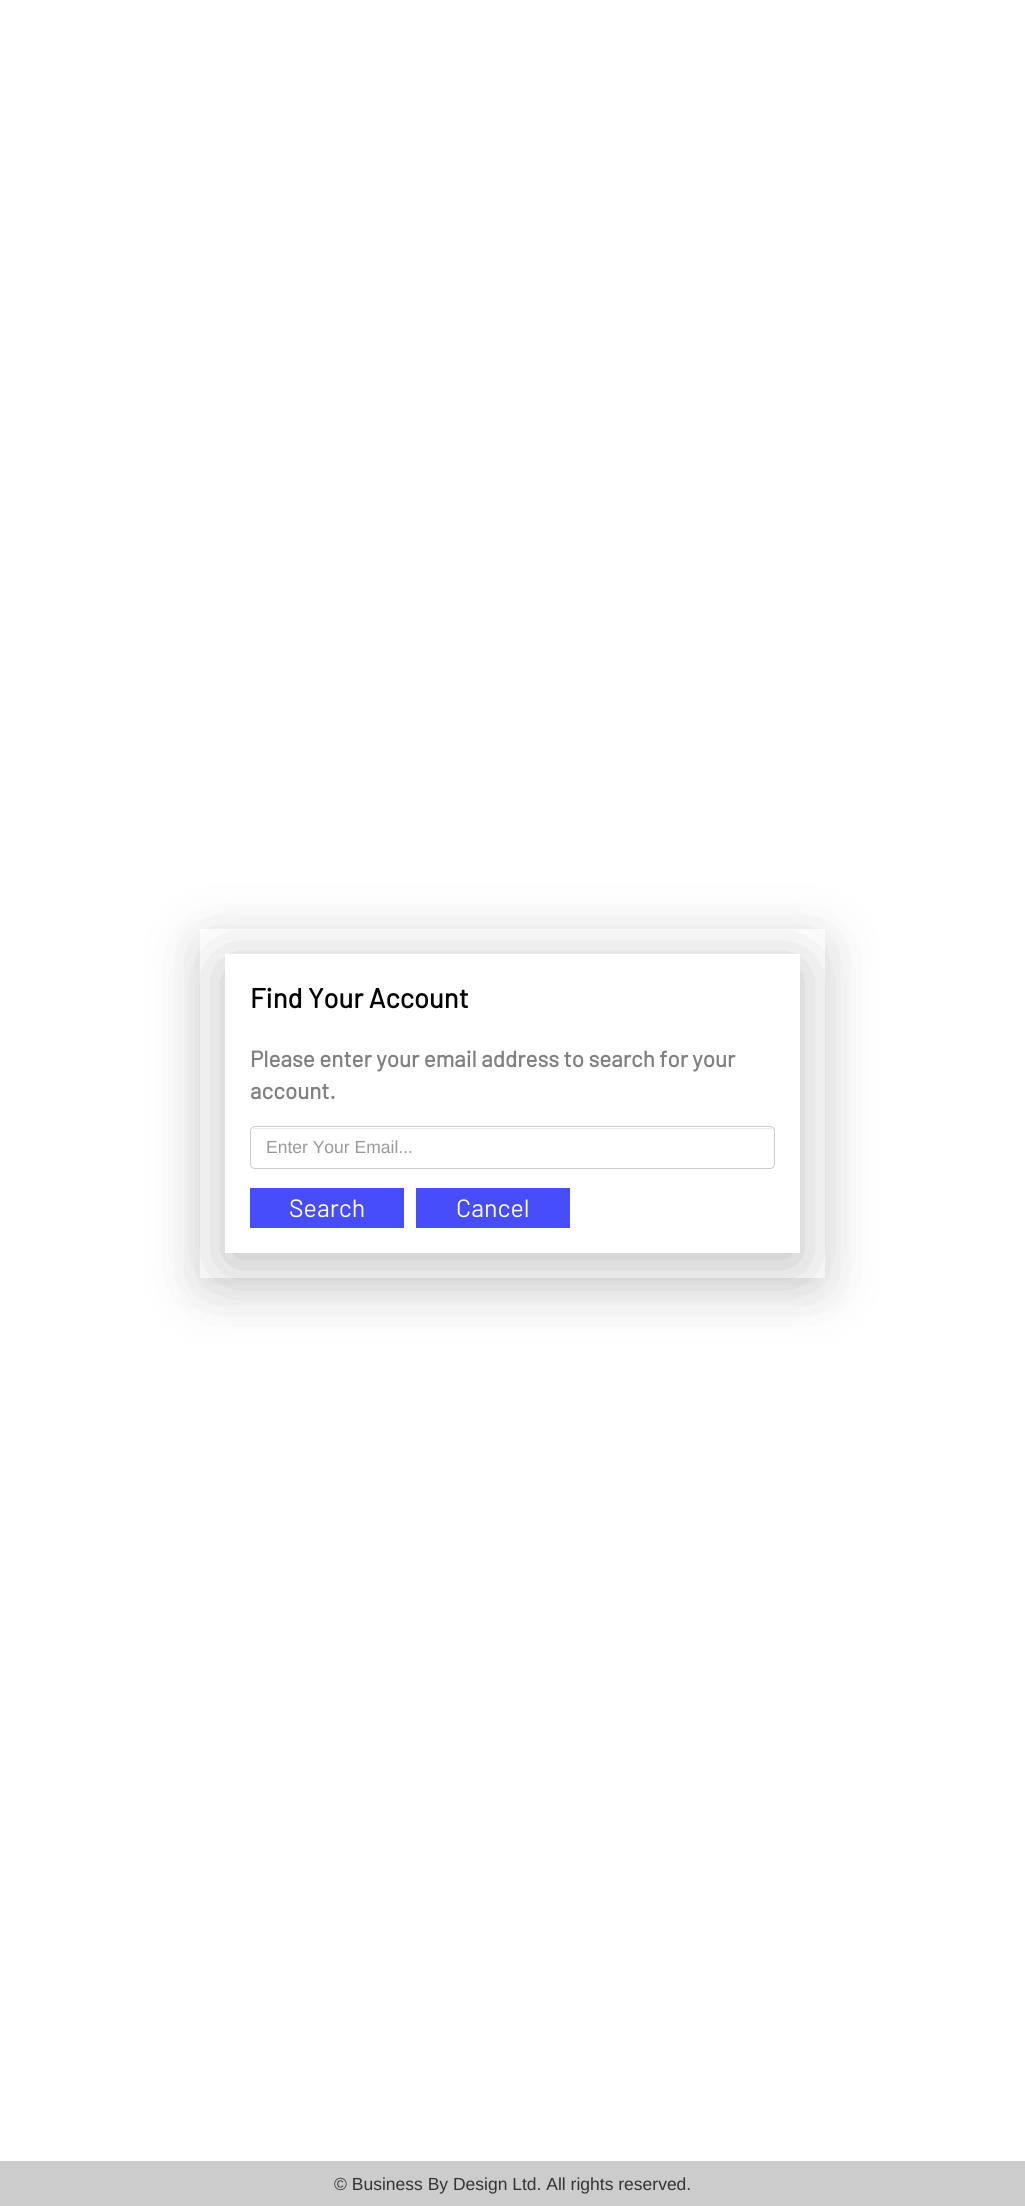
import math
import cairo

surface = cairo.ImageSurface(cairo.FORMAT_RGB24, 1025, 2206)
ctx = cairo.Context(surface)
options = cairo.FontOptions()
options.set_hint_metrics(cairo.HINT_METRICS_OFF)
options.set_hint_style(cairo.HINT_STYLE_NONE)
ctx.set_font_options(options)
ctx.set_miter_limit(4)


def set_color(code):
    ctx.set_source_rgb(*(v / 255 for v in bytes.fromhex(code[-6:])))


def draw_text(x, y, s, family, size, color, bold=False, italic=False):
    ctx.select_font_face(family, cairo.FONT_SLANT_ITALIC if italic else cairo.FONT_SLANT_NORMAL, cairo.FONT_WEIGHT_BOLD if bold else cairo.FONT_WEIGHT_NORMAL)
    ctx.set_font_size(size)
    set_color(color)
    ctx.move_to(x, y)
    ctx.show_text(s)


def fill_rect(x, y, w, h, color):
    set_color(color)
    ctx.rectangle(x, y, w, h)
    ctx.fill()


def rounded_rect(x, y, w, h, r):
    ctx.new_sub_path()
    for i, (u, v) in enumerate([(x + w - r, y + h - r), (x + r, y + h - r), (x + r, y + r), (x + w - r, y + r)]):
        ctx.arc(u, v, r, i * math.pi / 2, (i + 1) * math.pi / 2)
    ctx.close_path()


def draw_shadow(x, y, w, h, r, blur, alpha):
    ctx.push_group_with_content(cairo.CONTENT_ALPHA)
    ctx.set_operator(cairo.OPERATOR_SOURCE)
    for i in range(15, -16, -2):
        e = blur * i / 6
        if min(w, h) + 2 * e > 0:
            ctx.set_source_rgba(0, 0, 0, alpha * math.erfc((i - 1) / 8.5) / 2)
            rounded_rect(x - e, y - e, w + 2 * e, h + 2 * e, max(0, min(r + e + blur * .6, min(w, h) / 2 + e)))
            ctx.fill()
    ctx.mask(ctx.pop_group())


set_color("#ffffff")
ctx.paint()
ctx.save()
ctx.set_fill_rule(cairo.FILL_RULE_EVEN_ODD)
ctx.new_path()
ctx.move_to(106, 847)
ctx.line_to(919, 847)
ctx.line_to(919, 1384)
ctx.line_to(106, 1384)
ctx.close_path()
ctx.move_to(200, 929)
ctx.line_to(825, 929)
ctx.line_to(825, 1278)
ctx.line_to(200, 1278)
ctx.close_path()
ctx.clip()
set_color("#000000")
draw_shadow(200, 941, 625, 349, 0, 31, 0.12)
ctx.restore()
ctx.save()
ctx.set_fill_rule(cairo.FILL_RULE_EVEN_ODD)
ctx.new_path()
ctx.move_to(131, 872)
ctx.line_to(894, 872)
ctx.line_to(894, 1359)
ctx.line_to(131, 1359)
ctx.close_path()
ctx.move_to(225, 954)
ctx.line_to(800, 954)
ctx.line_to(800, 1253)
ctx.line_to(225, 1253)
ctx.close_path()
ctx.clip()
set_color("#000000")
draw_shadow(225, 966, 575, 299, 0, 31, 0.25)
ctx.restore()
draw_text(250, 1008, "Find Your Account", "Barlow", 27.5, "#000000", bold=True)
draw_text(250, 1067, "Please enter your email address to search for your", "Barlow", 22.5, "#808080", bold=True)
draw_text(250, 1099, "account.", "Barlow", 22.5, "#808080", bold=True)
set_color("#ebebeb")
ctx.new_path()
ctx.move_to(255, 1129)
ctx.line_to(770, 1129)
ctx.curve_to(772, 1129, 774, 1130, 774, 1132)
ctx.curve_to(774, 1130, 772, 1128, 770, 1128)
ctx.line_to(255, 1128)
ctx.curve_to(253, 1128, 251, 1130, 251, 1132)
ctx.curve_to(251, 1130, 253, 1129, 255, 1129)
ctx.close_path()
ctx.fill()
rounded_rect(250.5, 1126.5, 524, 42, 4.5)
set_color("#cccccc")
ctx.set_line_width(1)
ctx.stroke()
draw_text(266, 1153, "Enter Your Email...", "Liberation Sans", 17.5, "#999999")
fill_rect(250, 1188, 154, 40, "#474dfa")
draw_text(289, 1217, "Search", "Barlow", 25, "#ffffff")
fill_rect(416, 1188, 154, 40, "#474dfa")
draw_text(456, 1217, "Cancel", "Barlow", 25, "#ffffff")
fill_rect(0, 2161, 1025, 45, "#cccccc")
draw_text(334, 2190, "© Business By Design Ltd. All rights reserved.", "Liberation Sans", 17.5, "#333333")
surface.write_to_png("output.png")
